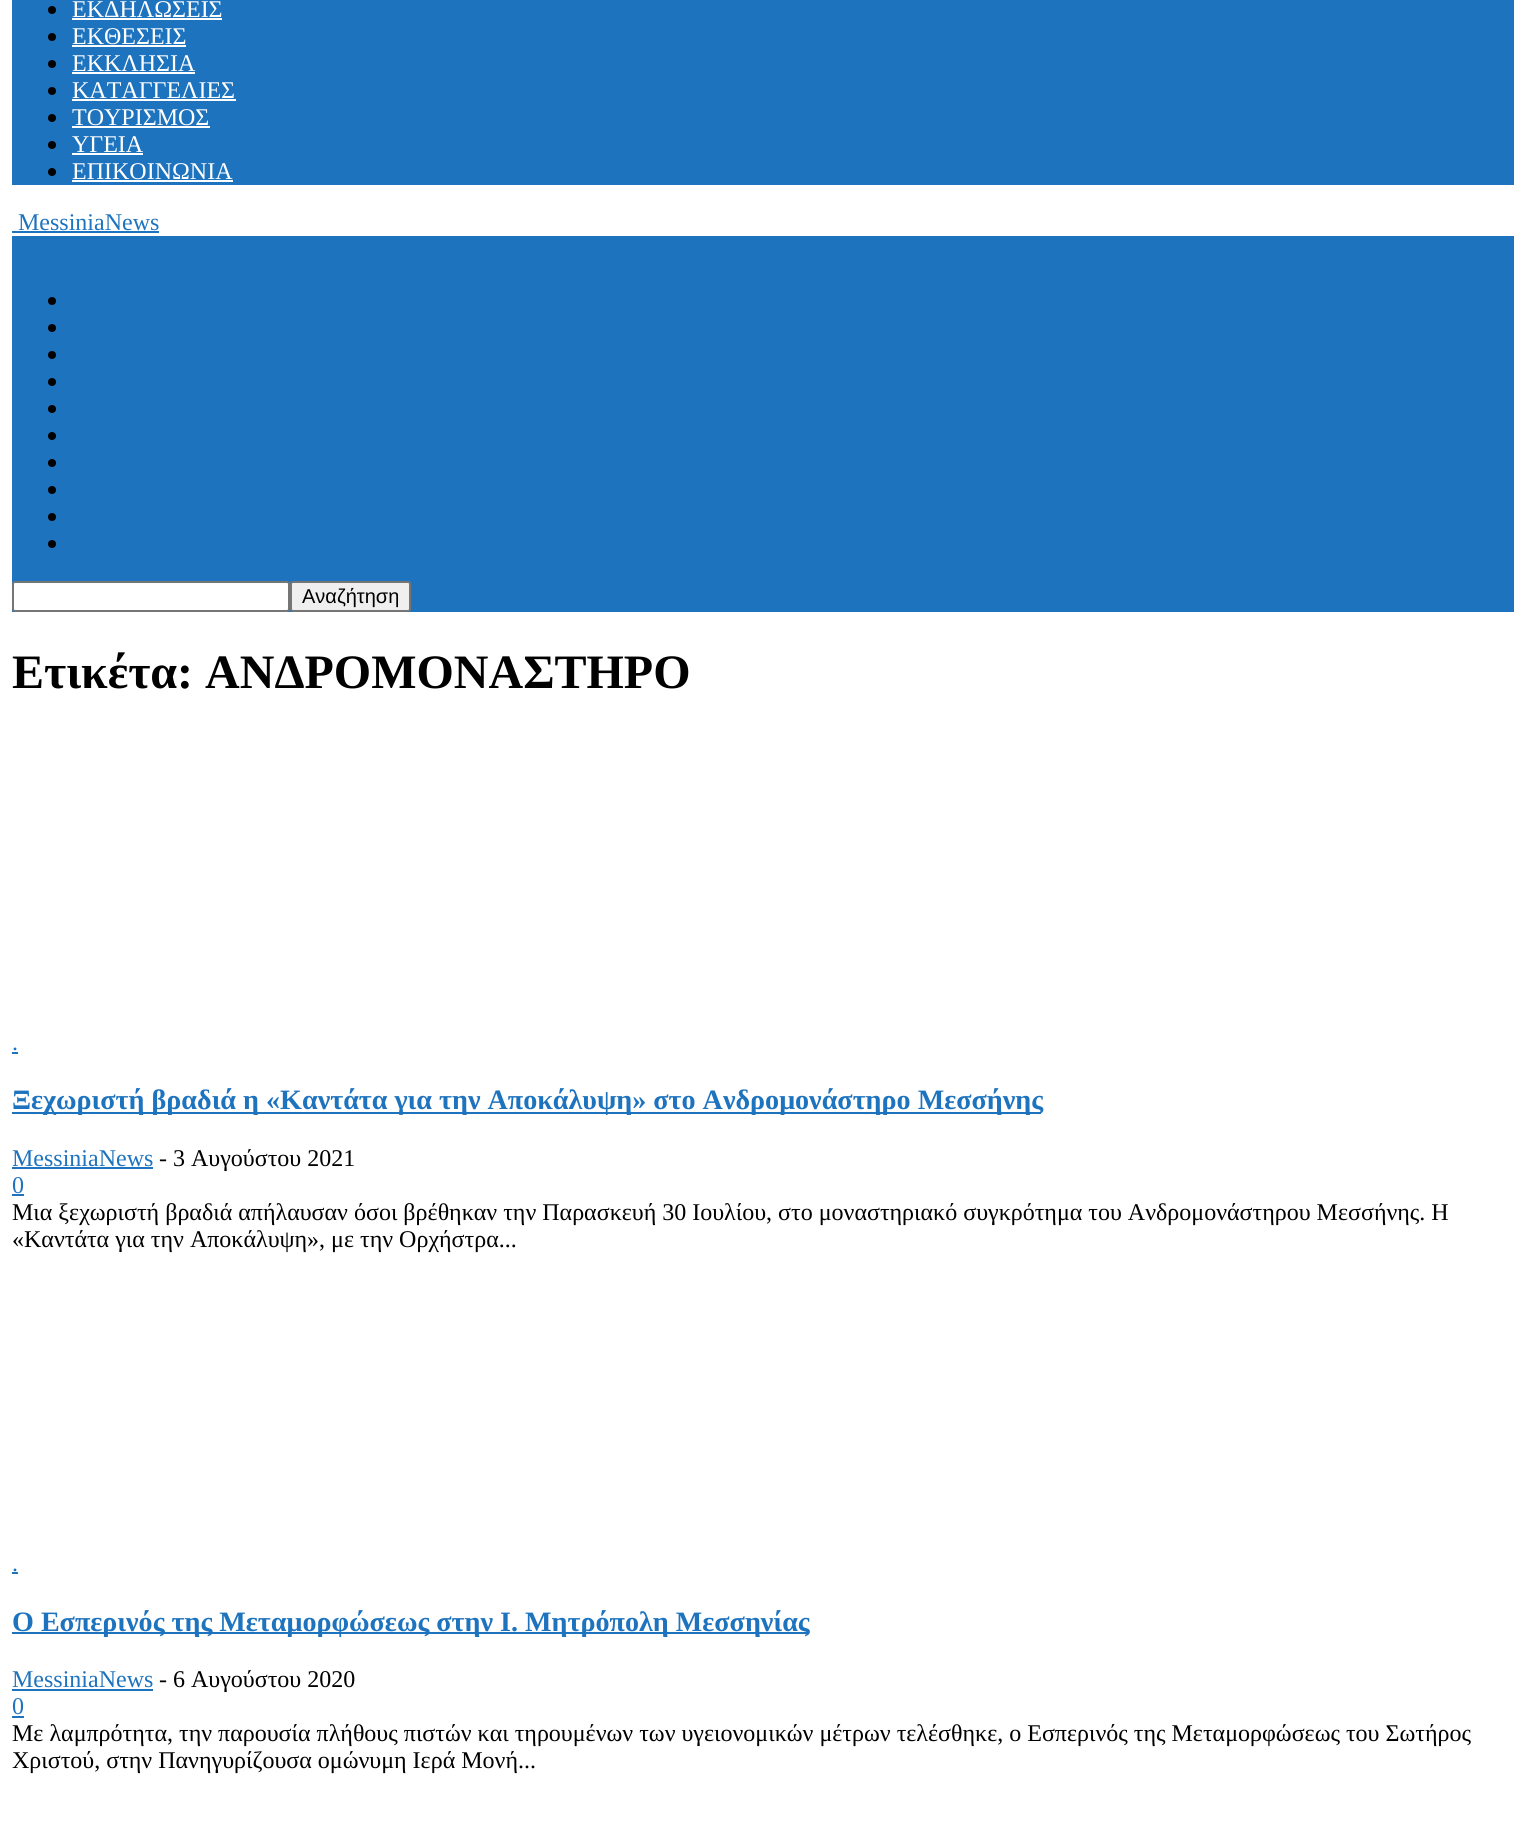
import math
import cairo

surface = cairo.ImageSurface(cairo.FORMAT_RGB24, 1525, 1847)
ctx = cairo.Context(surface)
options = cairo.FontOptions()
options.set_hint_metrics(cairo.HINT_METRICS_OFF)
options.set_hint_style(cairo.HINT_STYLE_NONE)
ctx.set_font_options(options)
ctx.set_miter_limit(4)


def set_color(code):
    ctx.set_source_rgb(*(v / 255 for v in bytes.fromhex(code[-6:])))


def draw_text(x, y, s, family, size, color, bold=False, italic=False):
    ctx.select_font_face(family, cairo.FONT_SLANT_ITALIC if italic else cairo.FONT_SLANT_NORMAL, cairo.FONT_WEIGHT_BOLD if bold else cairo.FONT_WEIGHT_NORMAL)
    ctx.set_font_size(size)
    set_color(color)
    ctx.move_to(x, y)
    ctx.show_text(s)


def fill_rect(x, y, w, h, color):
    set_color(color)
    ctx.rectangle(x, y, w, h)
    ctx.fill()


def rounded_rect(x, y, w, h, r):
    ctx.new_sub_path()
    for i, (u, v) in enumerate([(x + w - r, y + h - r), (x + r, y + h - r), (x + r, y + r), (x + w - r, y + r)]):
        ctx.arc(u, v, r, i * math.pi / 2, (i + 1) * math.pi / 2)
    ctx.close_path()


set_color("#ffffff")
ctx.paint()
fill_rect(12, 0, 1502, 185, "#1e73be")
set_color("#000000")
ctx.arc(52, 10, 4, 0, 2 * math.pi)
ctx.fill()
draw_text(72, 17, "ΕΚΔΗΛΩΣΕΙΣ", "Liberation Serif", 24, "#ffffff")
fill_rect(72, 18, 150, 2, "#ffffff")
set_color("#000000")
ctx.new_path()
ctx.arc(52, 37, 4, 0, 2 * math.pi)
ctx.fill()
draw_text(72, 44, "ΕΚΘΕΣΕΙΣ", "Liberation Serif", 24, "#ffffff")
fill_rect(72, 45, 114, 2, "#ffffff")
set_color("#000000")
ctx.new_path()
ctx.arc(52, 64, 4, 0, 2 * math.pi)
ctx.fill()
draw_text(72, 71, "ΕΚΚΛΗΣΙΑ", "Liberation Serif", 24, "#ffffff")
fill_rect(72, 72, 123, 2, "#ffffff")
set_color("#000000")
ctx.new_path()
ctx.arc(52, 91, 4, 0, 2 * math.pi)
ctx.fill()
draw_text(72, 98, "ΚΑΤΑΓΓΕΛΙΕΣ", "Liberation Serif", 24, "#ffffff")
fill_rect(72, 99, 164, 2, "#ffffff")
set_color("#000000")
ctx.new_path()
ctx.arc(52, 118, 4, 0, 2 * math.pi)
ctx.fill()
draw_text(72, 125, "ΤΟΥΡΙΣΜΟΣ", "Liberation Serif", 24, "#ffffff")
fill_rect(72, 126, 138, 2, "#ffffff")
set_color("#000000")
ctx.new_path()
ctx.arc(52, 145, 4, 0, 2 * math.pi)
ctx.fill()
draw_text(72, 152, "ΥΓΕΙΑ", "Liberation Serif", 24, "#ffffff")
fill_rect(72, 153, 71, 2, "#ffffff")
set_color("#000000")
ctx.new_path()
ctx.arc(52, 172, 4, 0, 2 * math.pi)
ctx.fill()
draw_text(72, 179, "ΕΠΙΚΟΙΝΩΝΙΑ", "Liberation Serif", 24, "#ffffff")
fill_rect(72, 180, 161, 2, "#ffffff")
draw_text(18, 230, "MessiniaNews", "Liberation Serif", 24, "#1e73be")
fill_rect(12, 231, 147, 2, "#1e73be")
fill_rect(12, 236, 1502, 376, "#1e73be")
set_color("#000000")
ctx.new_path()
ctx.arc(52, 301, 4, 0, 2 * math.pi)
ctx.fill()
ctx.arc(52, 328, 4, 0, 2 * math.pi)
ctx.fill()
ctx.arc(52, 355, 4, 0, 2 * math.pi)
ctx.fill()
ctx.arc(52, 382, 4, 0, 2 * math.pi)
ctx.fill()
ctx.arc(52, 409, 4, 0, 2 * math.pi)
ctx.fill()
ctx.arc(52, 436, 4, 0, 2 * math.pi)
ctx.fill()
ctx.arc(52, 463, 4, 0, 2 * math.pi)
ctx.fill()
ctx.arc(52, 490, 4, 0, 2 * math.pi)
ctx.fill()
ctx.arc(52, 517, 4, 0, 2 * math.pi)
ctx.fill()
ctx.arc(52, 544, 4, 0, 2 * math.pi)
ctx.fill()
set_color("#ffffff")
rounded_rect(13, 582, 276, 29, 2)
ctx.fill_preserve()
set_color("#767676")
ctx.stroke()
set_color("#efefef")
rounded_rect(291, 582, 119, 29, 2)
ctx.fill_preserve()
set_color("#767676")
ctx.stroke()
draw_text(302, 603, "Αναζήτηση", "Liberation Sans", 20, "#000000")
draw_text(12, 688, "Ετικέτα: ΑΝΔΡΟΜΟΝΑΣΤΗΡΟ", "Liberation Serif", 48, "#000000", bold=True)
draw_text(12, 1050, ".", "Liberation Serif", 24, "#1e73be")
fill_rect(12, 1052, 6, 2, "#1e73be")
fill_rect(12, 1112, 1029, 2, "#1e73be")
draw_text(12, 1109, "Ξεχωριστή βραδιά η «Καντάτα για την Αποκάλυψη» στο Ανδρομονάστηρο Μεσσήνης", "Liberation Serif", 28.1, "#1e73be", bold=True)
draw_text(12, 1166, "MessiniaNews", "Liberation Serif", 24, "#1e73be")
fill_rect(12, 1167, 141, 2, "#1e73be")
draw_text(159, 1166, "- 3 Αυγούστου 2021", "Liberation Serif", 24, "#000000")
draw_text(12, 1193, "0", "Liberation Serif", 24, "#1e73be")
fill_rect(12, 1194, 12, 2, "#1e73be")
draw_text(12, 1220, "Μια ξεχωριστή βραδιά απήλαυσαν όσοι βρέθηκαν την Παρασκευή 30 Ιουλίου, στο μοναστηριακό συγκρότημα του Ανδρομονάστηρου Μεσσήνης. Η", "Liberation Serif", 24, "#000000")
draw_text(12, 1247, "«Καντάτα για την Αποκάλυψη», με την Ορχήστρα...", "Liberation Serif", 24, "#000000")
draw_text(12, 1571, ".", "Liberation Serif", 24, "#1e73be")
fill_rect(12, 1572, 6, 2, "#1e73be")
fill_rect(12, 1632, 797, 2, "#1e73be")
draw_text(12, 1631, "Ο Εσπερινός της Μεταμορφώσεως στην Ι. Μητρόπολη Μεσσηνίας", "Liberation Serif", 28.1, "#1e73be", bold=True)
draw_text(12, 1687, "MessiniaNews", "Liberation Serif", 24, "#1e73be")
fill_rect(12, 1689, 141, 2, "#1e73be")
draw_text(159, 1687, "- 6 Αυγούστου 2020", "Liberation Serif", 24, "#000000")
draw_text(12, 1714, "0", "Liberation Serif", 24, "#1e73be")
fill_rect(12, 1716, 12, 2, "#1e73be")
draw_text(12, 1741, "Με λαμπρότητα, την παρουσία πλήθους πιστών και τηρουμένων των υγειονομικών μέτρων τελέσθηκε, ο Εσπερινός της Μεταμορφώσεως του Σωτήρος", "Liberation Serif", 24, "#000000")
draw_text(12, 1768, "Χριστού, στην Πανηγυρίζουσα ομώνυμη Ιερά Μονή...", "Liberation Serif", 24, "#000000")
surface.write_to_png("output.png")
